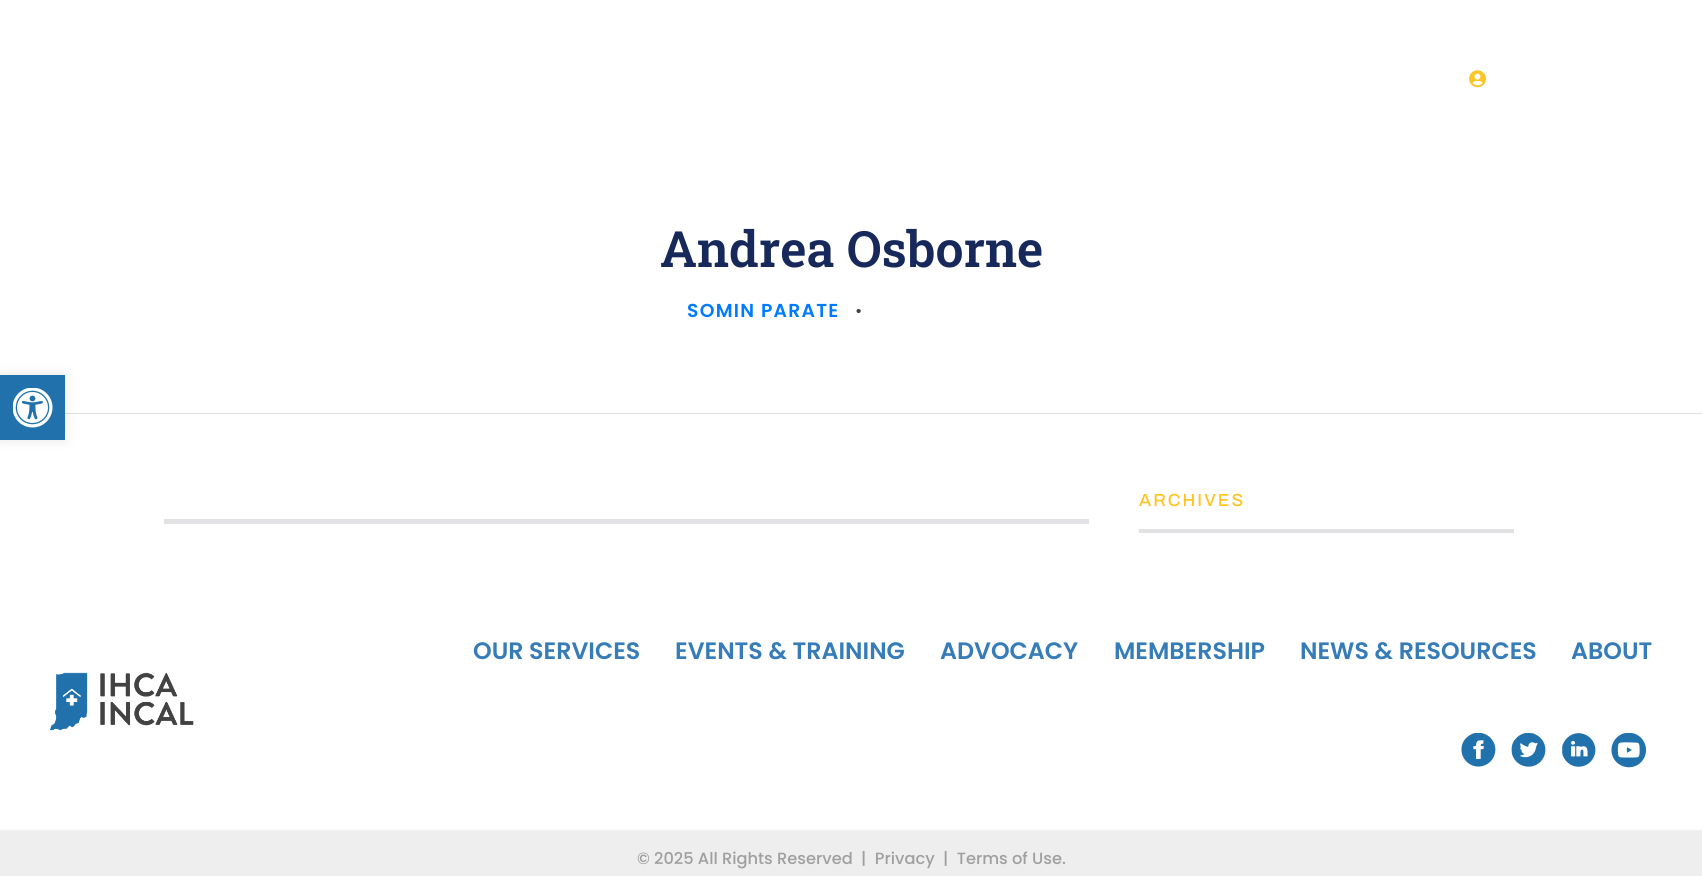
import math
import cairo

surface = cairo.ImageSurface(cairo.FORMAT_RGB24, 1702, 876)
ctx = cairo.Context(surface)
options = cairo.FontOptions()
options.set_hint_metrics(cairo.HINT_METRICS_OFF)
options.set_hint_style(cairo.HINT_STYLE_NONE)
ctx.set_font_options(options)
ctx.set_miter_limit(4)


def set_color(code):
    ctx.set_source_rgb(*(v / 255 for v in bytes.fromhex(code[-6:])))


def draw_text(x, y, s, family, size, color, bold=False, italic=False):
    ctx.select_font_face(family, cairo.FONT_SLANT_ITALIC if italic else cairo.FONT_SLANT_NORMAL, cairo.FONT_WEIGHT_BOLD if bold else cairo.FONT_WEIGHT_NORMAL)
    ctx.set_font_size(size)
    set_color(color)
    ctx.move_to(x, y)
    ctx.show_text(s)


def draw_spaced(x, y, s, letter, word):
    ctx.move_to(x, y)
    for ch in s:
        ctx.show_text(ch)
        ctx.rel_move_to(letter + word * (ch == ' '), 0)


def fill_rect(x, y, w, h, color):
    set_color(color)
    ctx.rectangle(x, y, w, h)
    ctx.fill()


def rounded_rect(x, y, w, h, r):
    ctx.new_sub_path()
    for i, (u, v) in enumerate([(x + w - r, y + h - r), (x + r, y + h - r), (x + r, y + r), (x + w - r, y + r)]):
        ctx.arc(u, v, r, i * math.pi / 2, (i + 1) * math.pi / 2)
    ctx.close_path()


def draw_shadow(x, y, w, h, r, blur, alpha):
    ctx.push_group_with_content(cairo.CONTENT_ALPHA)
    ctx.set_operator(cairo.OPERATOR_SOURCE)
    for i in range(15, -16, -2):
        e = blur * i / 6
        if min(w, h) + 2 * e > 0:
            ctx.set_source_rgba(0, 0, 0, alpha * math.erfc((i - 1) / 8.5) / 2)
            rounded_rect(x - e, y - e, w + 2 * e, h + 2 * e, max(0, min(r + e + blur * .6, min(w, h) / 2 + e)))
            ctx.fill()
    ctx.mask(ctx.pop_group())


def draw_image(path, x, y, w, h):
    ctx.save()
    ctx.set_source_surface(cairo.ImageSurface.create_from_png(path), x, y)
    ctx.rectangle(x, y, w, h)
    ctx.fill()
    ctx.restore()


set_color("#ffffff")
ctx.paint()
fill_rect(65, 413, 1637, 1, "#e2e2e5")
set_color("#000000")
draw_shadow(0, 375, 65, 65, 0, 6, 0.1)
fill_rect(0, 375, 65, 65, "#2172ac")
draw_image("assets/img1.png", 13, 388, 40, 40)
draw_image("assets/img2.png", 1469, 70, 17, 18)
draw_text(660, 267, "Andrea Osborne", "Roboto Slab SemiBold", 50, "#17285a")
ctx.select_font_face("Poppins SemiBold")
ctx.set_font_size(18.75)
set_color("#007bff")
draw_spaced(687, 317, "SOMIN PARATE", 1.25, 0)
draw_text(855, 316, "•", "Poppins SemiBold", 15, "#414241")
fill_rect(1139, 529, 375, 4, "#e2e2e5")
ctx.select_font_face("Archivo Medium")
ctx.set_font_size(17.5)
set_color("#ffc524")
draw_spaced(1139, 506, "ARCHIVES", 2, 0)
fill_rect(164, 519, 925, 5, "#e2e2e5")
draw_text(473, 659, "OUR SERVICES", "Poppins SemiBold", 23.75, "#367cb8")
draw_text(675, 659, "EVENTS & TRAINING", "Poppins SemiBold", 23.75, "#367cb8")
draw_text(940, 659, "ADVOCACY", "Poppins SemiBold", 23.75, "#367cb8")
draw_text(1114, 659, "MEMBERSHIP", "Poppins SemiBold", 23.75, "#367cb8")
draw_text(1300, 659, "NEWS & RESOURCES", "Poppins SemiBold", 23.75, "#367cb8")
draw_text(1571, 659, "ABOUT", "Poppins SemiBold", 23.75, "#367cb8")
draw_image("assets/img3.png", 1461, 733, 35, 34)
draw_image("assets/img4.png", 1511, 733, 35, 34)
draw_image("assets/img5.png", 1562, 733, 34, 34)
draw_image("assets/img6.png", 1611, 733, 35, 35)
draw_image("assets/img7.png", 50, 672, 144, 59)
fill_rect(0, 831, 1702, 45, "#eeeeee")
fill_rect(0, 830, 1702, 1, "#f1f1f1")
draw_text(637, 864, "© 2025 All Rights Reserved  |  Privacy  |  Terms of Use.", "Poppins Medium", 16.25, "#9e9f9e")
surface.write_to_png("output.png")
